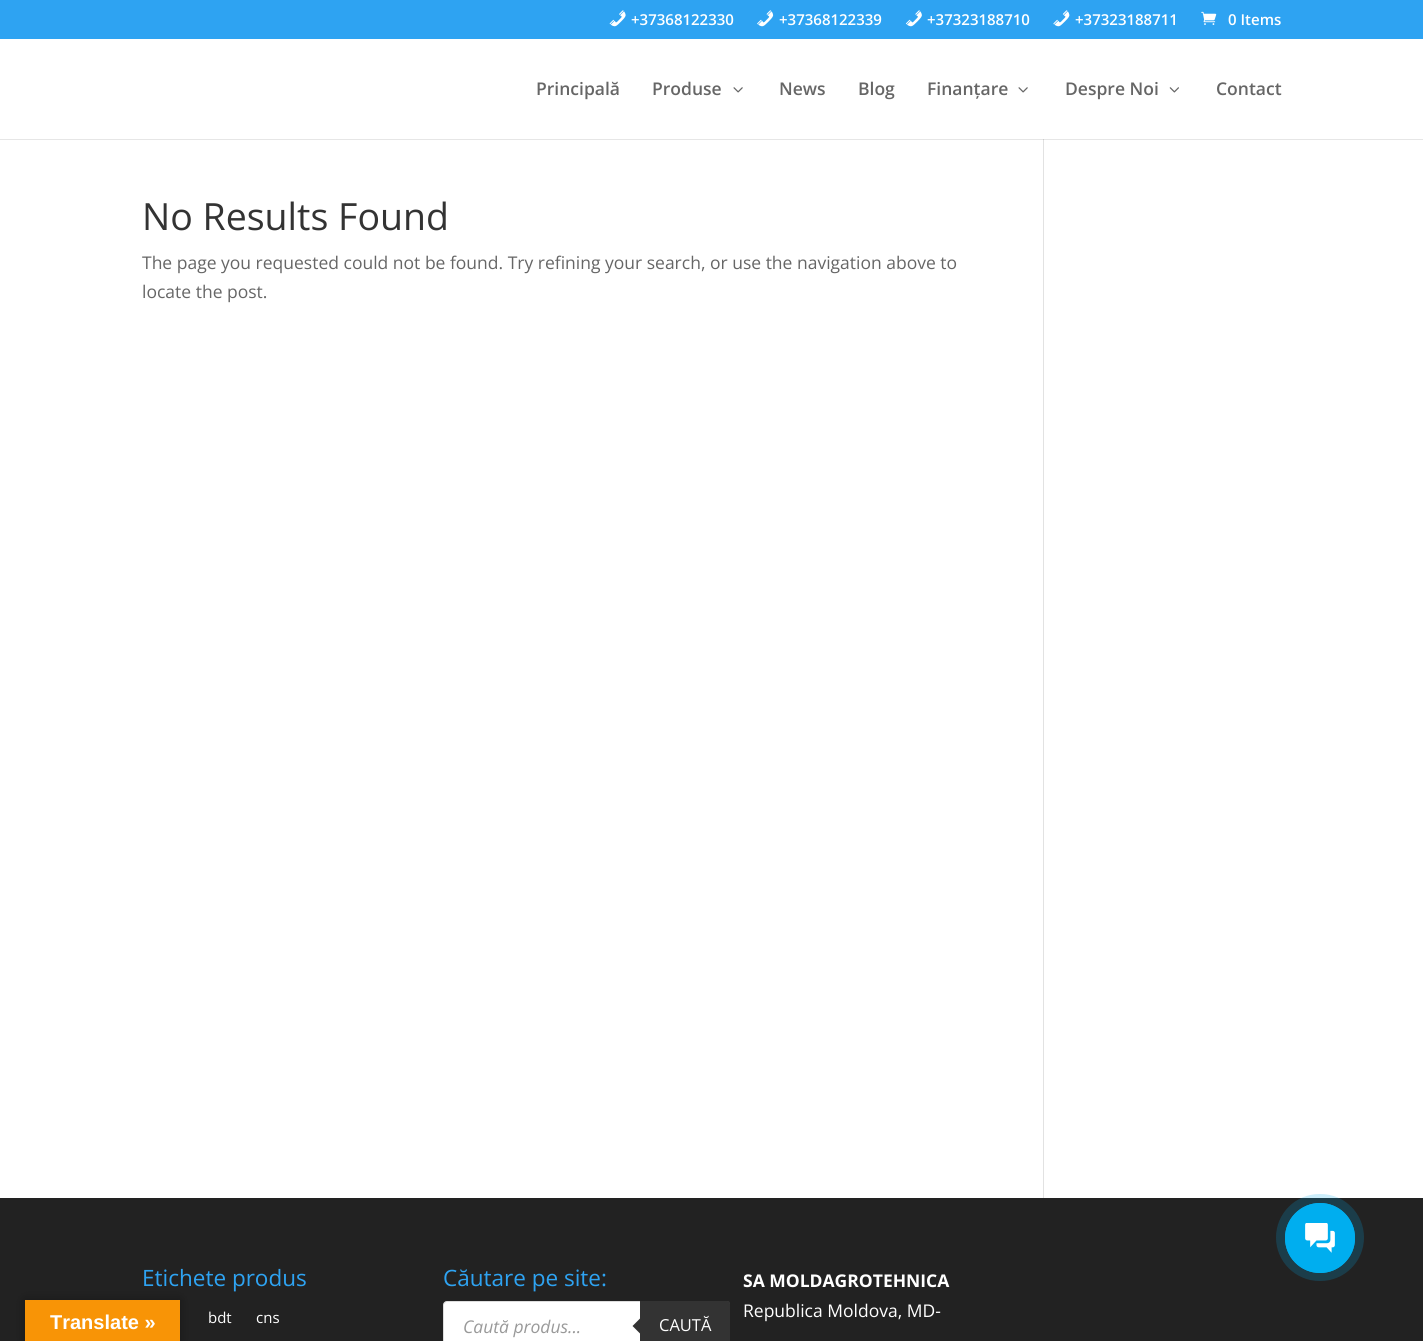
import math
import cairo

surface = cairo.ImageSurface(cairo.FORMAT_RGB24, 1423, 1341)
ctx = cairo.Context(surface)
options = cairo.FontOptions()
options.set_hint_metrics(cairo.HINT_METRICS_OFF)
options.set_hint_style(cairo.HINT_STYLE_NONE)
ctx.set_font_options(options)
ctx.set_miter_limit(4)


def set_color(code):
    ctx.set_source_rgb(*(v / 255 for v in bytes.fromhex(code[-6:])))


def draw_text(x, y, s, family, size, color, bold=False, italic=False):
    ctx.select_font_face(family, cairo.FONT_SLANT_ITALIC if italic else cairo.FONT_SLANT_NORMAL, cairo.FONT_WEIGHT_BOLD if bold else cairo.FONT_WEIGHT_NORMAL)
    ctx.set_font_size(size)
    set_color(color)
    ctx.move_to(x, y)
    ctx.show_text(s)


def fill_rect(x, y, w, h, color):
    set_color(color)
    ctx.rectangle(x, y, w, h)
    ctx.fill()


def rounded_rect(x, y, w, h, r):
    ctx.new_sub_path()
    for i, (u, v) in enumerate([(x + w - r, y + h - r), (x + r, y + h - r), (x + r, y + r), (x + w - r, y + r)]):
        ctx.arc(u, v, r, i * math.pi / 2, (i + 1) * math.pi / 2)
    ctx.close_path()


def draw_shadow(x, y, w, h, r, blur, alpha):
    ctx.push_group_with_content(cairo.CONTENT_ALPHA)
    ctx.set_operator(cairo.OPERATOR_SOURCE)
    for i in range(15, -16, -2):
        e = blur * i / 6
        if min(w, h) + 2 * e > 0:
            ctx.set_source_rgba(0, 0, 0, alpha * math.erfc((i - 1) / 8.5) / 2)
            rounded_rect(x - e, y - e, w + 2 * e, h + 2 * e, max(0, min(r + e + blur * .6, min(w, h) / 2 + e)))
            ctx.fill()
    ctx.mask(ctx.pop_group())


def draw_image(path, x, y, w, h):
    ctx.save()
    ctx.set_source_surface(cairo.ImageSurface.create_from_png(path), x, y)
    ctx.rectangle(x, y, w, h)
    ctx.fill()
    ctx.restore()


set_color("#ffffff")
ctx.paint()
fill_rect(0, 0, 1423, 39, "#2ea3f2")
draw_image("assets/img1.png", 609, 10, 17, 17)
draw_text(631, 25, "+37368122330", "Open Sans SemiBold", 15, "#ffffff")
draw_image("assets/img2.png", 757, 10, 17, 17)
draw_text(779, 25, "+37368122339", "Open Sans SemiBold", 15, "#ffffff")
draw_image("assets/img3.png", 905, 10, 17, 17)
draw_text(927, 25, "+37323188710", "Open Sans SemiBold", 15, "#ffffff")
draw_image("assets/img4.png", 1053, 10, 17, 17)
draw_text(1075, 25, "+37323188711", "Open Sans SemiBold", 15, "#ffffff")
draw_image("assets/img5.png", 1201, 11, 16, 14)
draw_text(1228, 25, "0 Items", "Open Sans SemiBold", 15, "#ffffff")
fill_rect(1043, 139, 1, 1059, "#e2e2e2")
ctx.set_source_rgba(0, 0, 0, 0.1)
ctx.new_path()
ctx.move_to(0, 139)
ctx.line_to(0, 140)
ctx.line_to(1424, 140)
ctx.line_to(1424, 40)
ctx.line_to(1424, 139)
ctx.close_path()
ctx.fill()
draw_text(536, 95, "Principală", "Open Sans SemiBold", 17.5, "#666666")
draw_text(652, 95, "Produse", "Open Sans SemiBold", 17.5, "#666666")
draw_image("assets/img6.png", 733, 87, 10, 6)
draw_text(779, 95, "News", "Open Sans SemiBold", 17.5, "#666666")
draw_text(858, 95, "Blog", "Open Sans SemiBold", 17.5, "#666666")
draw_text(927, 95, "Finanțare", "Open Sans SemiBold", 17.5, "#666666")
draw_image("assets/img6.png", 1018, 87, 10, 6)
draw_text(1065, 95, "Despre Noi", "Open Sans SemiBold", 17.5, "#666666")
draw_image("assets/img7.png", 1169, 87, 10, 6)
draw_text(1216, 95, "Contact", "Open Sans SemiBold", 17.5, "#666666")
draw_text(142, 230, "No Results Found", "Open Sans", 37.5, "#333333")
draw_text(142, 269, "The page you requested could not be found. Try refining your search, or use the navigation above to", "Open Sans", 17.5, "#666666")
draw_text(142, 298, "locate the post.", "Open Sans", 17.5, "#666666")
fill_rect(0, 1198, 1423, 143, "#222222")
draw_text(142, 1286, "Etichete produs", "Open Sans", 22.5, "#2ea3f2")
draw_text(208, 1323, "bdt", "Open Sans", 15, "#ffffff")
draw_text(256, 1323, "cns", "Open Sans", 15, "#ffffff")
draw_text(443, 1286, "Căutare pe site:", "Open Sans", 22.5, "#2ea3f2")
set_color("#ffffff")
rounded_rect(443.5, 1301.5, 286, 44, 3.5)
ctx.fill_preserve()
set_color("#dddddd")
ctx.set_line_width(1)
ctx.stroke()
draw_text(463, 1333, "Caută produs...", "Open Sans", 17.5, "#999999", italic=True)
set_color("#333333")
ctx.new_path()
ctx.move_to(640, 1301)
ctx.line_to(727.5, 1301)
ctx.curve_to(729, 1301, 730, 1302, 730, 1303.5)
ctx.line_to(730, 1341.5)
ctx.curve_to(730, 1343, 729, 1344, 727.5, 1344)
ctx.line_to(640, 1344)
ctx.close_path()
ctx.fill()
ctx.new_path()
ctx.move_to(642.5, 1316)
ctx.line_to(642.5, 1336)
ctx.line_to(632.5, 1326)
ctx.close_path()
ctx.fill()
draw_text(659, 1331, "CAUTĂ", "Open Sans", 16.5, "#ffffff")
draw_text(743, 1287, "SA MOLDAGROTEHNICA", "Open Sans", 17.5, "#ffffff", bold=True)
draw_text(743, 1317, "Republica Moldova, MD-", "Open Sans", 17.5, "#ffffff")
ctx.set_source_rgba(0, 0.682, 0.937, 0.2)
rounded_rect(1276, 1194, 88, 87, 43.5)
ctx.fill()
ctx.arc(1320, 1238, 34.5, 0, 2 * math.pi)
set_color("#00aeef")
ctx.stroke()
ctx.arc(1320, 1238, 35, 0, 2 * math.pi)
ctx.fill()
draw_image("assets/img8.png", 1305, 1223, 30, 30)
set_color("#000000")
draw_shadow(25, 1300, 155, 41, 0, 5.5, 0.3)
fill_rect(25, 1300, 155, 41, "#f89406")
draw_text(50, 1329, "Translate »", "Liberation Sans", 20, "#ffffff", bold=True)
surface.write_to_png("output.png")
